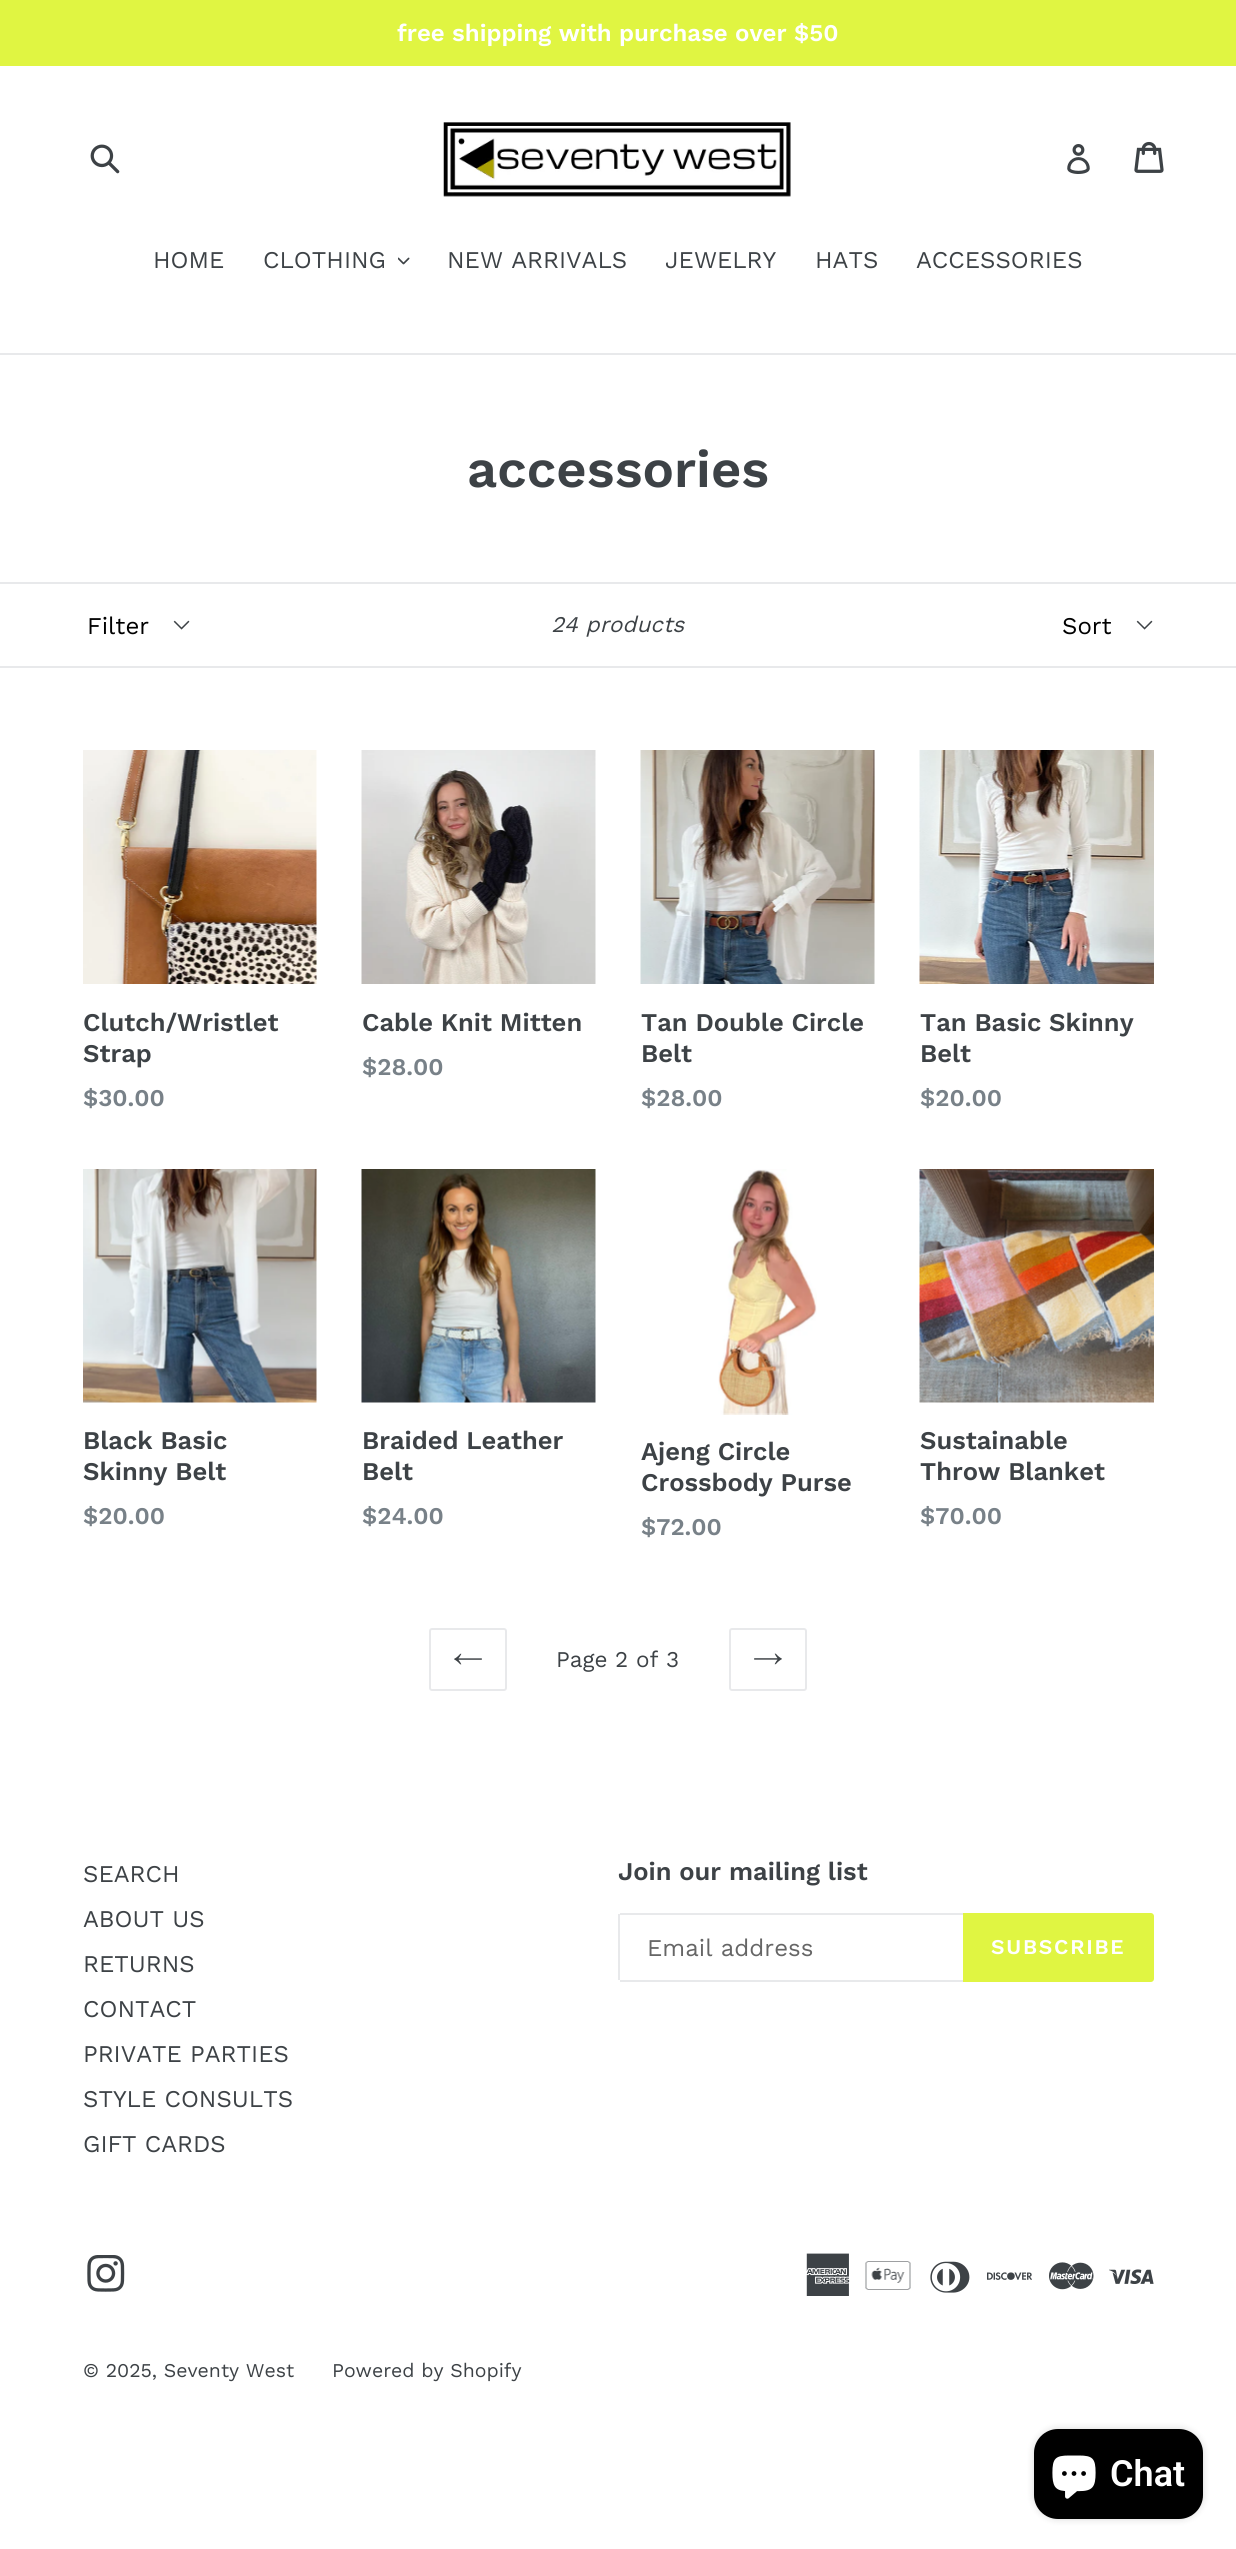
import math
import cairo

surface = cairo.ImageSurface(cairo.FORMAT_RGB24, 1236, 2549)
ctx = cairo.Context(surface)
options = cairo.FontOptions()
options.set_hint_metrics(cairo.HINT_METRICS_OFF)
options.set_hint_style(cairo.HINT_STYLE_NONE)
ctx.set_font_options(options)
ctx.set_miter_limit(4)


def set_color(code):
    ctx.set_source_rgb(*(v / 255 for v in bytes.fromhex(code[-6:])))


def draw_text(x, y, s, family, size, color, bold=False, italic=False):
    ctx.select_font_face(family, cairo.FONT_SLANT_ITALIC if italic else cairo.FONT_SLANT_NORMAL, cairo.FONT_WEIGHT_BOLD if bold else cairo.FONT_WEIGHT_NORMAL)
    ctx.set_font_size(size)
    set_color(color)
    ctx.move_to(x, y)
    ctx.show_text(s)


def draw_spaced(x, y, s, letter, word):
    ctx.move_to(x, y)
    for ch in s:
        ctx.show_text(ch)
        ctx.rel_move_to(letter + word * (ch == ' '), 0)


def fill_rect(x, y, w, h, color):
    set_color(color)
    ctx.rectangle(x, y, w, h)
    ctx.fill()


def rounded_rect(x, y, w, h, r):
    ctx.new_sub_path()
    for i, (u, v) in enumerate([(x + w - r, y + h - r), (x + r, y + h - r), (x + r, y + r), (x + w - r, y + r)]):
        ctx.arc(u, v, r, i * math.pi / 2, (i + 1) * math.pi / 2)
    ctx.close_path()


def draw_shadow(x, y, w, h, r, blur, alpha):
    ctx.push_group_with_content(cairo.CONTENT_ALPHA)
    ctx.set_operator(cairo.OPERATOR_SOURCE)
    for i in range(15, -16, -2):
        e = blur * i / 6
        if min(w, h) + 2 * e > 0:
            ctx.set_source_rgba(0, 0, 0, alpha * math.erfc((i - 1) / 8.5) / 2)
            rounded_rect(x - e, y - e, w + 2 * e, h + 2 * e, max(0, min(r + e + blur * .6, min(w, h) / 2 + e)))
            ctx.fill()
    ctx.mask(ctx.pop_group())


def draw_image(path, x, y, w, h):
    ctx.save()
    ctx.set_source_surface(cairo.ImageSurface.create_from_png(path), x, y)
    ctx.rectangle(x, y, w, h)
    ctx.fill()
    ctx.restore()


set_color("#ffffff")
ctx.paint()
fill_rect(0, 0, 1236, 66, "#e0f542")
draw_text(397, 41, "free shipping with purchase over $50", "Work Sans SemiBold", 24, "#ffffff")
draw_image("assets/img1.png", 90, 144, 30, 30)
draw_image("assets/img2.png", 443, 122, 348, 75)
draw_image("assets/img3.png", 1067, 144, 23, 30)
draw_image("assets/img4.png", 1134, 141, 30, 32)
fill_rect(0, 353, 1236, 2, "#e8e9eb")
draw_text(153, 268, "HOME", "Work Sans", 24, "#3d4246")
draw_text(263, 268, "CLOTHING", "Work Sans", 24, "#3d4246")
draw_image("assets/img5.png", 398, 257, 12, 8)
draw_text(447, 268, "NEW ARRIVALS", "Work Sans", 24, "#3d4246")
draw_text(665, 268, "JEWELRY", "Work Sans", 24, "#3d4246")
draw_text(815, 268, "HATS", "Work Sans", 24, "#3d4246")
draw_text(916, 268, "ACCESSORIES", "Work Sans", 24, "#3d4246")
draw_text(467, 487, "accessories", "Work Sans SemiBold", 52.5, "#3d4246")
fill_rect(0, 582, 1236, 2, "#e8e9eb")
fill_rect(0, 666, 1236, 2, "#e8e9eb")
draw_image("assets/img6.png", 173, 620, 17, 10)
draw_text(87, 634, "Filter", "Work Sans", 24, "#000000")
draw_text(551, 632, "24 products", "Work Sans", 22.5, "#3d4246", italic=True)
draw_image("assets/img6.png", 1136, 620, 17, 10)
draw_text(1062, 634, "Sort", "Work Sans", 24, "#000000")
draw_image("assets/img7.png", 83, 750, 234, 234)
draw_text(83, 1031, "Clutch/Wristlet", "Work Sans SemiBold", 25.5, "#3d4246")
draw_text(83, 1062, "Strap", "Work Sans SemiBold", 25.5, "#3d4246")
draw_text(83, 1106, "$30.00", "Work Sans SemiBold", 24, "#788188")
draw_image("assets/img8.png", 361, 750, 235, 234)
draw_text(362, 1031, "Cable Knit Mitten", "Work Sans SemiBold", 25.5, "#3d4246")
draw_text(362, 1075, "$28.00", "Work Sans SemiBold", 24, "#788188")
draw_image("assets/img9.png", 640, 750, 235, 234)
draw_text(641, 1031, "Tan Double Circle", "Work Sans SemiBold", 25.5, "#3d4246")
draw_text(641, 1062, "Belt", "Work Sans SemiBold", 25.5, "#3d4246")
draw_text(641, 1106, "$28.00", "Work Sans SemiBold", 24, "#788188")
draw_image("assets/img10.png", 919, 750, 235, 234)
draw_text(920, 1031, "Tan Basic Skinny", "Work Sans SemiBold", 25.5, "#3d4246")
draw_text(920, 1062, "Belt", "Work Sans SemiBold", 25.5, "#3d4246")
draw_text(920, 1106, "$20.00", "Work Sans SemiBold", 24, "#788188")
draw_image("assets/img11.png", 83, 1169, 234, 234)
draw_text(83, 1449, "Black Basic", "Work Sans SemiBold", 25.5, "#3d4246")
draw_text(83, 1480, "Skinny Belt", "Work Sans SemiBold", 25.5, "#3d4246")
draw_text(83, 1524, "$20.00", "Work Sans SemiBold", 24, "#788188")
draw_image("assets/img12.png", 361, 1169, 235, 234)
draw_text(362, 1449, "Braided Leather", "Work Sans SemiBold", 25.5, "#3d4246")
draw_text(362, 1480, "Belt", "Work Sans SemiBold", 25.5, "#3d4246")
draw_text(362, 1524, "$24.00", "Work Sans SemiBold", 24, "#788188")
draw_image("assets/img13.png", 718, 1169, 99, 246)
draw_text(641, 1460, "Ajeng Circle", "Work Sans SemiBold", 25.5, "#3d4246")
draw_text(641, 1491, "Crossbody Purse", "Work Sans SemiBold", 25.5, "#3d4246")
draw_text(641, 1535, "$72.00", "Work Sans SemiBold", 24, "#788188")
draw_image("assets/img14.png", 919, 1169, 235, 234)
draw_text(920, 1449, "Sustainable", "Work Sans SemiBold", 25.5, "#3d4246")
draw_text(920, 1480, "Throw Blanket", "Work Sans SemiBold", 25.5, "#3d4246")
draw_text(920, 1524, "$70.00", "Work Sans SemiBold", 24, "#788188")
rounded_rect(430, 1629, 76, 61, 2)
set_color("#e8e9eb")
ctx.stroke()
draw_image("assets/img15.png", 454, 1653, 28, 12)
draw_text(556, 1667, "Page 2 of 3", "Work Sans", 22.5, "#3d4246")
rounded_rect(730, 1629, 76, 61, 2)
set_color("#e8e9eb")
ctx.stroke()
draw_image("assets/img16.png", 754, 1653, 28, 12)
draw_text(83, 1882, "SEARCH", "Work Sans", 24, "#3d4246")
draw_text(83, 1927, "ABOUT US", "Work Sans", 24, "#3d4246")
draw_text(83, 1972, "RETURNS", "Work Sans", 24, "#3d4246")
draw_text(83, 2017, "CONTACT", "Work Sans", 24, "#3d4246")
draw_text(83, 2062, "PRIVATE PARTIES", "Work Sans", 24, "#3d4246")
draw_text(83, 2107, "STYLE CONSULTS", "Work Sans", 24, "#3d4246")
draw_text(83, 2152, "GIFT CARDS", "Work Sans", 24, "#3d4246")
draw_text(618, 1880, "Join our mailing list", "Work Sans SemiBold", 25.5, "#3d4246")
fill_rect(620, 1913, 343, 2, "#e8e9eb")
fill_rect(620, 1980, 343, 2, "#e8e9eb")
fill_rect(618, 1914, 2, 66, "#e8e9eb")
draw_text(647, 1956, "Email address", "Work Sans", 24, "#666666")
set_color("#e0f542")
ctx.new_path()
ctx.move_to(963, 1913)
ctx.line_to(1151, 1913)
ctx.curve_to(1152.5, 1913, 1154, 1914.5, 1154, 1916)
ctx.line_to(1154, 1979)
ctx.curve_to(1154, 1980.5, 1152.5, 1982, 1151, 1982)
ctx.line_to(963, 1982)
ctx.close_path()
ctx.fill()
ctx.select_font_face("Work Sans SemiBold")
ctx.set_font_size(21)
set_color("#ffffff")
draw_spaced(991, 1954, "SUBSCRIBE", 1.75, 0)
draw_image("assets/img17.png", 87, 2255, 38, 37)
draw_image("assets/img18.png", 806, 2253, 44, 43)
draw_image("assets/img19.png", 865, 2261, 46, 29)
draw_image("assets/img20.png", 930, 2261, 40, 32)
draw_image("assets/img21.png", 987, 2272, 45, 8)
draw_image("assets/img22.png", 1049, 2262, 45, 28)
draw_image("assets/img23.png", 1109, 2269, 45, 15)
draw_text(83, 2377, "© 2025, Seventy West", "Work Sans", 19.5, "#3d4246")
draw_text(332, 2377, "Powered by Shopify", "Work Sans", 19.5, "#3d4246")
set_color("#000000")
draw_shadow(1034, 2429, 169, 90, 24, 4, 0.15)
set_color("#000000")
rounded_rect(1034, 2429, 169, 90, 24)
ctx.fill()
draw_image("assets/img24.png", 1052, 2455, 44, 44)
draw_text(1110, 2486, "Chat", "Roboto SemiBold", 36, "#ffffff")
surface.write_to_png("output.png")
